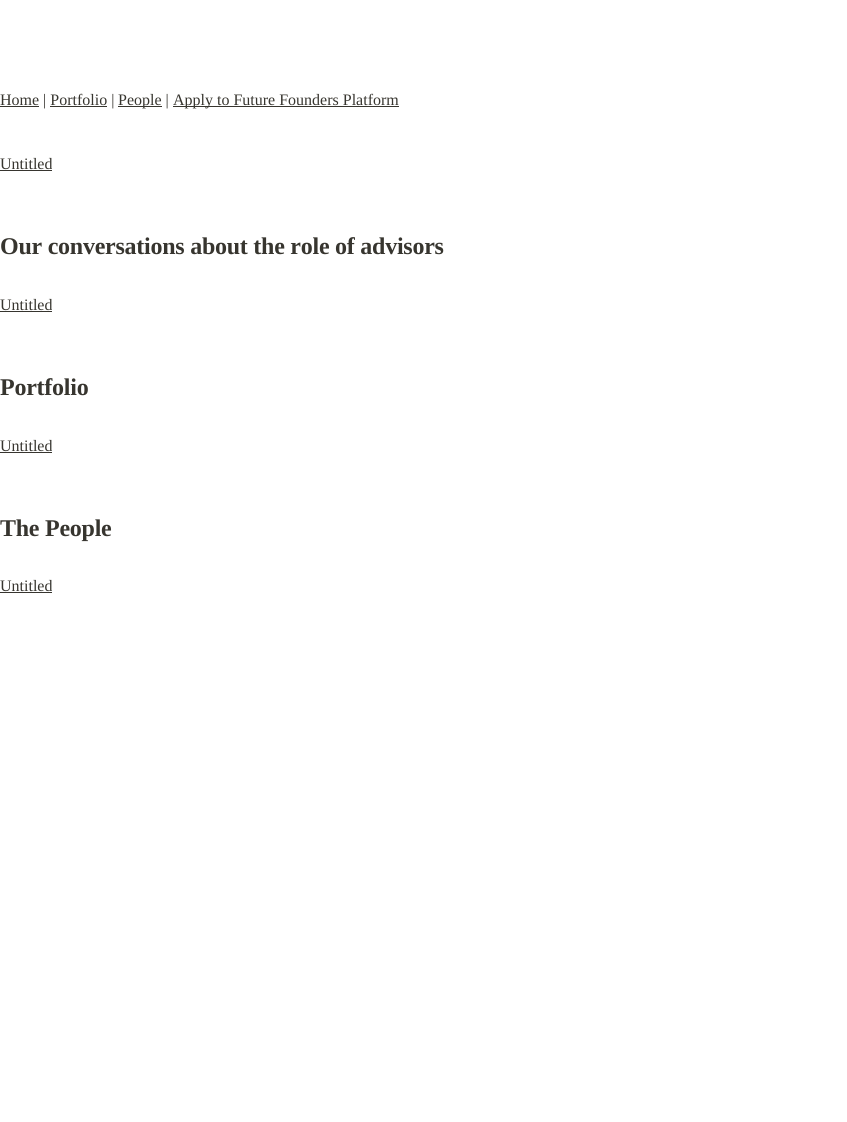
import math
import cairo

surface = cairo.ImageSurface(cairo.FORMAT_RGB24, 847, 1122)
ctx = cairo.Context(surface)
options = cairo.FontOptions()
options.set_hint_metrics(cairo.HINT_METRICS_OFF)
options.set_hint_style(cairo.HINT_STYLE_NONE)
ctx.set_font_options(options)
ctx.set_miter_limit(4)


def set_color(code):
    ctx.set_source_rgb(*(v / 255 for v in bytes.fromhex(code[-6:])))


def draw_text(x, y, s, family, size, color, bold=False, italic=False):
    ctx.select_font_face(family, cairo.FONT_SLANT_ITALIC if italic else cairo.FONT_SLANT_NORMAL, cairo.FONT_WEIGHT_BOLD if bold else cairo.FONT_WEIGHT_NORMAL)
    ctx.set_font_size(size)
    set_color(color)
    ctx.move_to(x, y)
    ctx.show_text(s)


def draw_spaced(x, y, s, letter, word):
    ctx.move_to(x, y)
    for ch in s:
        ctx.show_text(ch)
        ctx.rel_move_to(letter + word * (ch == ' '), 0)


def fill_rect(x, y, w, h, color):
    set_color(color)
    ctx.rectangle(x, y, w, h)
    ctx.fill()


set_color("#ffffff")
ctx.paint()
fill_rect(0, 106, 39, 1, "#37352f")
draw_text(0, 105, "Home | Portfolio |", "Liberation Serif", 16, "#37352f")
fill_rect(118, 106, 44, 1, "#37352f")
draw_text(118, 105, "People |", "Liberation Serif", 16, "#37352f")
fill_rect(173, 106, 226, 1, "#37352f")
draw_text(173, 105, "Apply to Future Founders Platform", "Liberation Serif", 16, "#37352f")
fill_rect(50, 106, 57, 1, "#37352f")
draw_text(0, 169, "Untitled", "Liberation Serif", 16, "#37352f")
fill_rect(0, 170, 52, 1, "#37352f")
ctx.select_font_face("Liberation Serif", cairo.FONT_SLANT_NORMAL, cairo.FONT_WEIGHT_BOLD)
ctx.set_font_size(24)
draw_spaced(0, 254, "Our conversations about the role of advisors", -0.25, 0)
draw_text(0, 310, "Untitled", "Liberation Serif", 16, "#37352f")
fill_rect(0, 311, 52, 1, "#37352f")
ctx.select_font_face("Liberation Serif", cairo.FONT_SLANT_NORMAL, cairo.FONT_WEIGHT_BOLD)
ctx.set_font_size(24)
draw_spaced(0, 395, "Portfolio", -0.25, 0)
draw_text(0, 451, "Untitled", "Liberation Serif", 16, "#37352f")
fill_rect(0, 452, 52, 1, "#37352f")
ctx.select_font_face("Liberation Serif", cairo.FONT_SLANT_NORMAL, cairo.FONT_WEIGHT_BOLD)
ctx.set_font_size(24)
draw_spaced(0, 536, "The People", -0.25, 0)
draw_text(0, 591, "Untitled", "Liberation Serif", 16, "#37352f")
fill_rect(0, 592, 52, 1, "#37352f")
surface.write_to_png("output.png")
